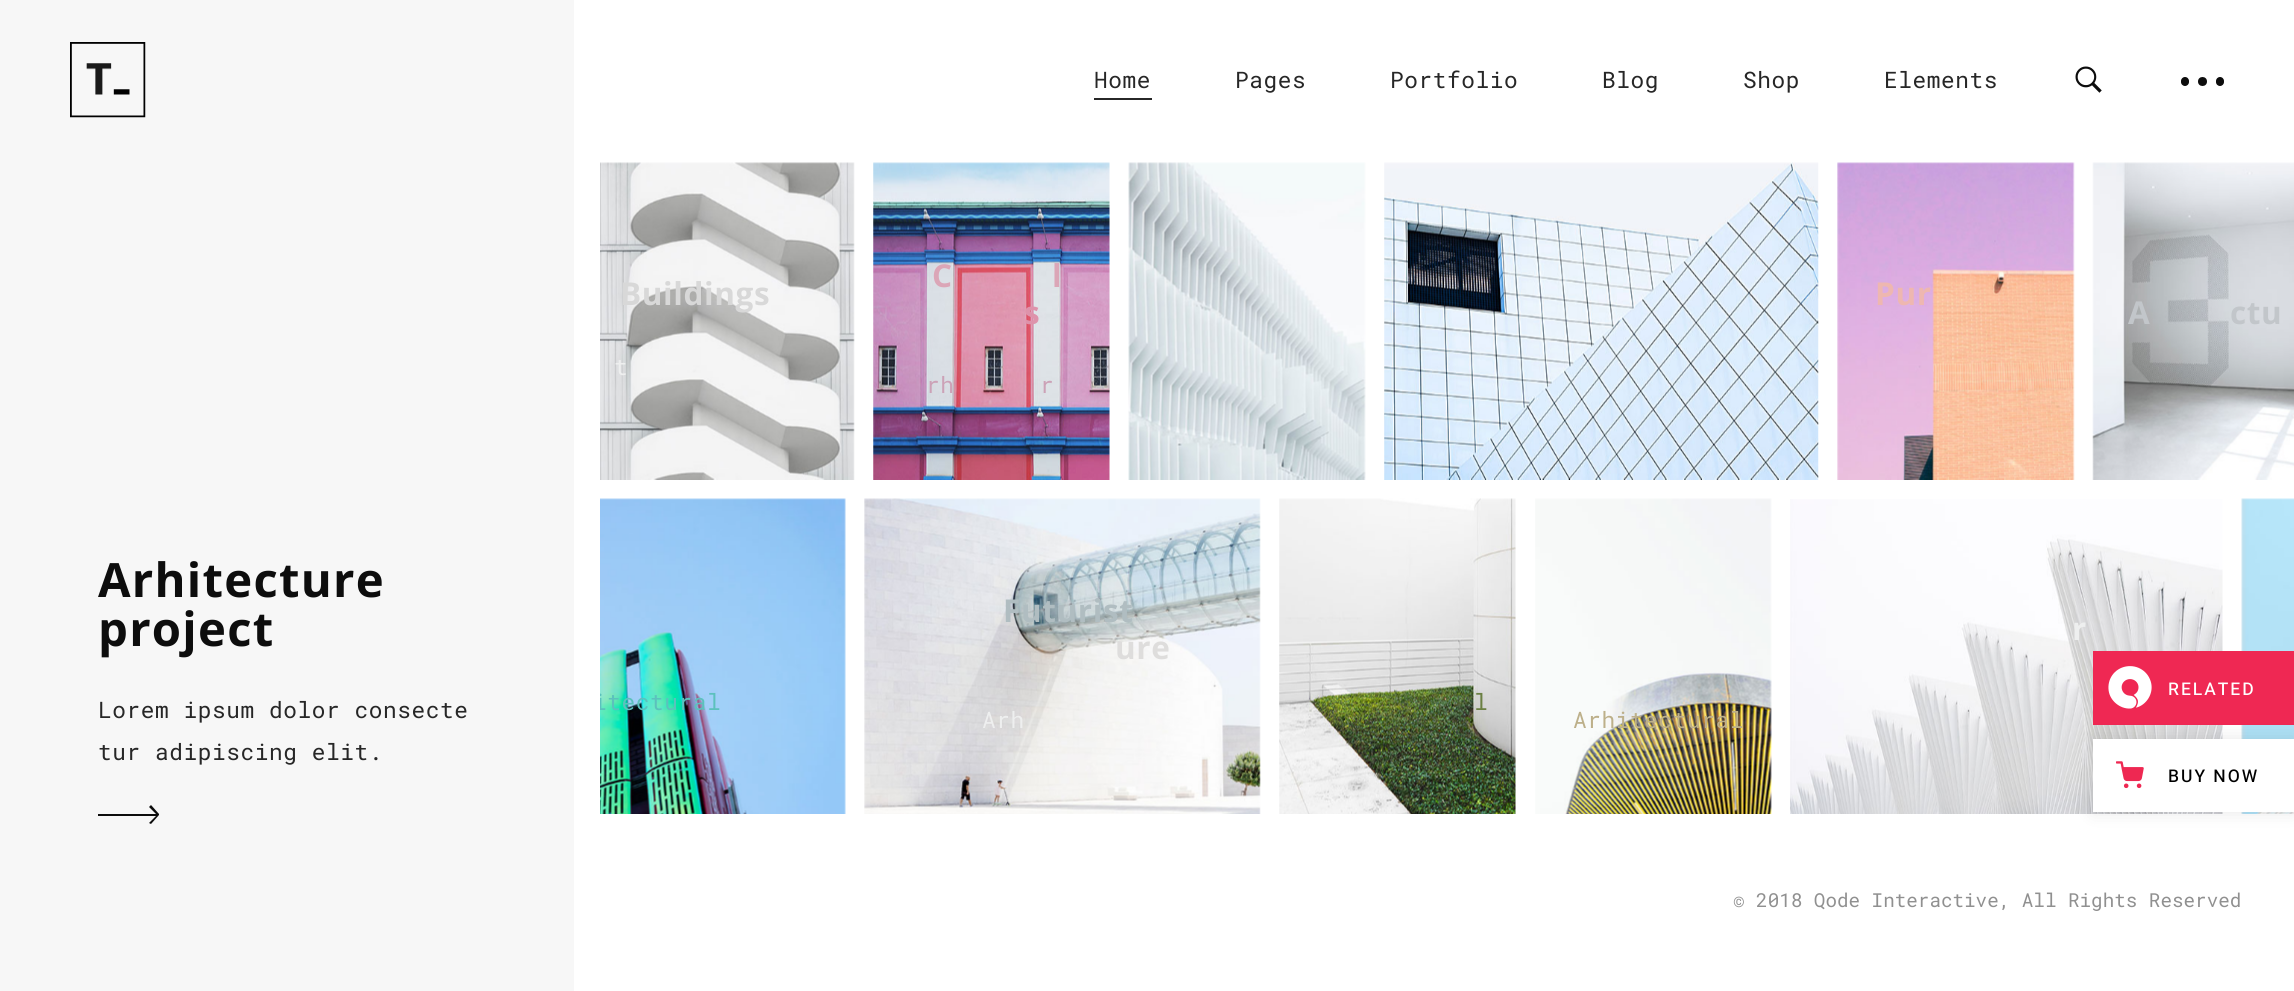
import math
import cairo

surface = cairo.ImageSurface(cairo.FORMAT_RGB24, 2294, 991)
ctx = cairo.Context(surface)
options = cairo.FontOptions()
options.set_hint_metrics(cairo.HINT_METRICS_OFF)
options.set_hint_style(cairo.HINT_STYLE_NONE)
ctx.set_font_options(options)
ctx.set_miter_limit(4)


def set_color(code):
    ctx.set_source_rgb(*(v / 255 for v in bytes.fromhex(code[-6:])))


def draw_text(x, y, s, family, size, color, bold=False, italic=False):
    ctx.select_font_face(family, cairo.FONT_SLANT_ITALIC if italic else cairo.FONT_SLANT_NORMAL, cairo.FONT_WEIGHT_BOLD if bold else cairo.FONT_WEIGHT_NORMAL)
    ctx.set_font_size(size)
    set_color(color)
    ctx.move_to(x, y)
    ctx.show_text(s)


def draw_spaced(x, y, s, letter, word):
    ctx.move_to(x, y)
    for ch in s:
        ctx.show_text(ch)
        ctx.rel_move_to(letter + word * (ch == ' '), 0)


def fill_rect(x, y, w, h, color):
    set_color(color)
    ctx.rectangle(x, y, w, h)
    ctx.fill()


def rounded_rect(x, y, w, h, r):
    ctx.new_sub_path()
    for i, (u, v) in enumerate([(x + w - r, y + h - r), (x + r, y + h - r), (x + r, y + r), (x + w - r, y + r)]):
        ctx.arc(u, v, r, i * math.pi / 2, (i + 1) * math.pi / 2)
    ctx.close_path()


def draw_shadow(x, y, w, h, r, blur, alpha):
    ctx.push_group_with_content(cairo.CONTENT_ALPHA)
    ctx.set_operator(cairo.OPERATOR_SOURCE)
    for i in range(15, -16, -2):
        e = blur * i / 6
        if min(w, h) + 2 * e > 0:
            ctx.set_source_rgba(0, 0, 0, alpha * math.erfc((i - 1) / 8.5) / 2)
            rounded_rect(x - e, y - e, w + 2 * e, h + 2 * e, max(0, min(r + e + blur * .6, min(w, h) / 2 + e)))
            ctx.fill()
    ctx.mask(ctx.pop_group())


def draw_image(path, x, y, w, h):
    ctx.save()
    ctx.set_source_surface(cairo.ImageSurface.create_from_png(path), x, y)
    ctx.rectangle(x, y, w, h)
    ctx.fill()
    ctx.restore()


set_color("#ffffff")
ctx.paint()
fill_rect(0, 0, 574, 991, "#f7f7f7")
draw_image("assets/img1.png", 70, 42, 76, 76)
ctx.select_font_face("Roboto Mono")
ctx.set_font_size(22.75)
set_color("#272727")
draw_spaced(1094, 88, "Home", 0.6, 0)
fill_rect(1094, 98, 58, 2, "#272727")
draw_spaced(1235, 88, "Pages", 0.6, 0)
draw_spaced(1390, 88, "Portfolio", 0.6, 0)
draw_spaced(1602, 88, "Blog", 0.6, 0)
draw_spaced(1743, 88, "Shop", 0.6, 0)
draw_spaced(1884, 88, "Elements", 0.6, 0)
draw_image("assets/img2.png", 2075, 66, 27, 27)
set_color("#0d0d0d")
rounded_rect(2181, 77, 8, 9, 4)
ctx.fill()
ctx.arc(2202.5, 81.5, 4.5, 0, 2 * math.pi)
ctx.fill()
rounded_rect(2216, 77, 8, 9, 4)
ctx.fill()
ctx.select_font_face("Open Sans", cairo.FONT_SLANT_NORMAL, cairo.FONT_WEIGHT_BOLD)
ctx.set_font_size(47.25)
draw_spaced(98, 597, "Arhitecture", 1.25, 0)
draw_spaced(98, 646, "project", 1.25, 0)
ctx.select_font_face("Roboto Mono")
ctx.set_font_size(22.75)
set_color("#272727")
draw_spaced(98, 718, "Lorem ipsum dolor consecte", 0.6, 0)
draw_spaced(98, 760, "tur adipiscing elit.", 0.6, 0)
set_color("#0d0d0d")
ctx.new_path()
ctx.move_to(149, 823)
ctx.line_to(156, 816)
ctx.line_to(98, 816)
ctx.line_to(98, 814)
ctx.line_to(156, 814)
ctx.line_to(149, 807)
ctx.line_to(151, 805)
ctx.line_to(159, 814)
ctx.line_to(159, 815)
ctx.line_to(151, 824)
ctx.close_path()
ctx.fill()
draw_image("assets/img3.png", 600, 162, 255, 318)
ctx.select_font_face("Open Sans", cairo.FONT_SLANT_NORMAL, cairo.FONT_WEIGHT_BOLD)
ctx.set_font_size(31.5)
set_color("#d8d8d8")
draw_spaced(620, 305, "Buildings", 0.6, 0)
ctx.select_font_face("Roboto Mono")
ctx.set_font_size(22.75)
set_color("#eeefef")
draw_spaced(614, 375, "t", 0.6, 0)
draw_image("assets/img4.png", 873, 162, 237, 318)
ctx.select_font_face("Open Sans", cairo.FONT_SLANT_NORMAL, cairo.FONT_WEIGHT_BOLD)
ctx.set_font_size(31.5)
set_color("#dba6b7")
draw_spaced(932, 287, "C", 0.6, 0)
draw_spaced(1052, 287, "l", 0.6, 0)
set_color("#de93ab")
draw_spaced(1024, 324, "s", 0.6, 0)
ctx.select_font_face("Roboto Mono")
ctx.set_font_size(22.75)
set_color("#cca2b7")
draw_spaced(926, 393, "rh", 0.6, 0)
draw_spaced(1040, 393, "r", 0.6, 0)
draw_image("assets/img5.png", 1128, 162, 238, 318)
draw_image("assets/img6.png", 1384, 162, 435, 318)
draw_image("assets/img7.png", 1837, 162, 238, 318)
ctx.select_font_face("Open Sans", cairo.FONT_SLANT_NORMAL, cairo.FONT_WEIGHT_BOLD)
ctx.set_font_size(31.5)
set_color("#eeb7b0")
draw_spaced(1875, 305, "Pur", 0.6, 0)
draw_image("assets/img8.png", 2092, 162, 202, 318)
set_color("#c2c6ca")
draw_spaced(2128, 324, "A", 0.6, 0)
draw_spaced(2230, 324, "ctu", 0.6, 0)
draw_image("assets/img9.png", 864, 498, 397, 316)
set_color("#b0bdc1")
draw_spaced(1003, 622, "Futurist", 0.6, 0)
set_color("#dedddc")
draw_spaced(1115, 659, "ure", 0.6, 0)
ctx.select_font_face("Roboto Mono")
ctx.set_font_size(22.75)
set_color("#eeefef")
draw_spaced(982, 728, "Arh", 0.6, 0)
draw_image("assets/img10.png", 1790, 499, 433, 315)
ctx.select_font_face("Open Sans", cairo.FONT_SLANT_NORMAL, cairo.FONT_WEIGHT_BOLD)
ctx.set_font_size(31.5)
draw_spaced(2072, 640, "r", 0.6, 0)
draw_image("assets/img11.png", 2241, 498, 53, 316)
draw_image("assets/img12.png", 600, 498, 246, 316)
ctx.save()
ctx.rectangle(600, 677, 221, 46)
ctx.clip()
ctx.select_font_face("Roboto Mono")
ctx.set_font_size(22.75)
set_color("#5cc1bd")
draw_spaced(593, 710, "itectural", 0.6, 0)
ctx.restore()
draw_image("assets/img13.png", 1279, 498, 237, 316)
ctx.select_font_face("Roboto Mono")
ctx.set_font_size(22.75)
set_color("#6b8043")
draw_spaced(1474, 710, "l", 0.6, 0)
draw_image("assets/img14.png", 1535, 498, 237, 316)
set_color("#bdb08a")
draw_spaced(1573, 728, "Arhitectural", 0.6, 0)
draw_text(1733, 907, "© 2018 Qode Interactive, All Rights Reserved", "Roboto Mono", 19.25, "#909090")
fill_rect(2093, 651, 201, 74, "#ef2853")
draw_image("assets/img15.png", 2108, 666, 44, 43)
ctx.select_font_face("Heebo Medium")
ctx.set_font_size(17.5)
set_color("#ffffff")
draw_spaced(2168, 695, "RELATED", 2, 0)
set_color("#000000")
draw_shadow(2093, 739, 201, 73, 0, 8.5, 0.1)
fill_rect(2093, 739, 201, 73, "#ffffff")
draw_image("assets/img16.png", 2116, 761, 28, 28)
set_color("#000000")
draw_spaced(2168, 782, "BUY NOW", 2, 0)
surface.write_to_png("output.png")
